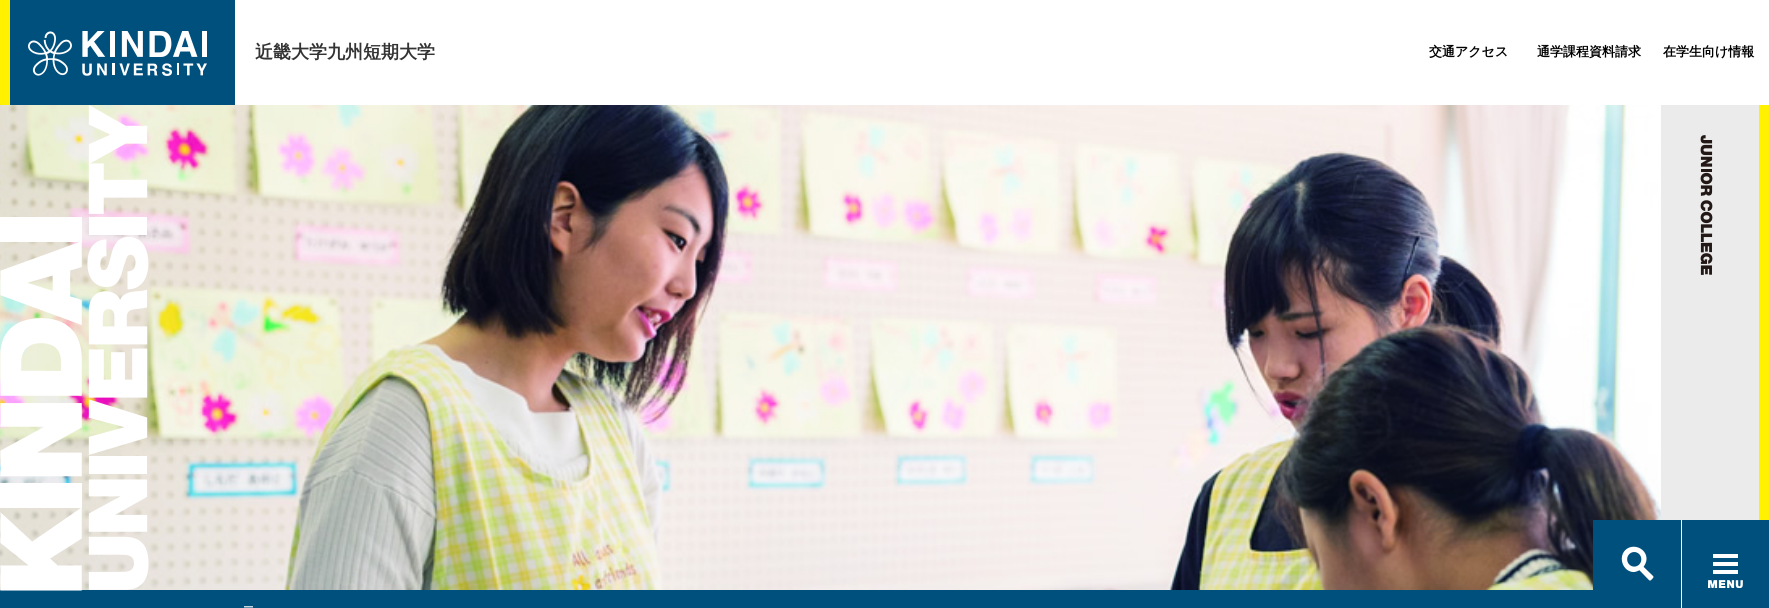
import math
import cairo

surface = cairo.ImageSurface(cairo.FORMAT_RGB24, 1769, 608)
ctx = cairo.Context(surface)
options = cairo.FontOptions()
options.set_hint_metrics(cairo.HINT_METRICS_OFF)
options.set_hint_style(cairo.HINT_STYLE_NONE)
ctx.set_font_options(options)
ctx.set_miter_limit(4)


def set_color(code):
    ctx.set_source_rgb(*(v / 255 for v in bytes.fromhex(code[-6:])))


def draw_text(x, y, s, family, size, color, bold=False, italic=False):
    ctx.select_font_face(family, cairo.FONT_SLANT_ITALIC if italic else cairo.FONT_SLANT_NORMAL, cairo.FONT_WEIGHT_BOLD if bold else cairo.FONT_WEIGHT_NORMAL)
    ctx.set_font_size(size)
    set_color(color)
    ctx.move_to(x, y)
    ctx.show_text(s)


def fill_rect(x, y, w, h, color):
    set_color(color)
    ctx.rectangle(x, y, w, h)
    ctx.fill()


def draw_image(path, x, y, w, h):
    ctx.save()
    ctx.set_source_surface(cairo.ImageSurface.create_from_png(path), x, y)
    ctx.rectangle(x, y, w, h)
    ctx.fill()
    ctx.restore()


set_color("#ffffff")
ctx.paint()
fill_rect(0, 0, 10, 105, "#fff100")
fill_rect(10, 0, 225, 105, "#00507e")
draw_image("assets/img1.png", 28, 31, 179, 45)
draw_text(255, 58, "近畿大学九州短期大学", "WenQuanYi Zen Hei", 18, "#333333", bold=True)
draw_text(1429, 56, "交通アクセス", "WenQuanYi Zen Hei", 13, "#000000", bold=True)
draw_text(1537, 56, "通学課程資料請求", "WenQuanYi Zen Hei", 13, "#000000", bold=True)
draw_text(1663, 56, "在学生向け情報", "WenQuanYi Zen Hei", 13, "#000000", bold=True)
draw_image("assets/img2.png", 0, 105, 1661, 485)
fill_rect(0, 590, 1593, 18, "#00507e")
draw_image("assets/img3.png", 0, 105, 149, 486)
fill_rect(1661, 105, 98, 415, "#ebebeb")
draw_image("assets/img4.png", 1700, 135, 13, 140)
fill_rect(1759, 105, 10, 415, "#fff100")
draw_text(243, 611, "ー", "WenQuanYi Zen Hei Medium", 11, "#ffffff")
fill_rect(1593, 520, 88, 88, "#00507e")
draw_image("assets/img5.png", 1621, 546, 33, 35)
fill_rect(1682, 520, 87, 88, "#00507e")
fill_rect(1713, 554, 25, 4, "#ffffff")
fill_rect(1713, 562, 25, 4, "#ffffff")
fill_rect(1713, 570, 25, 4, "#ffffff")
draw_image("assets/img6.png", 1708, 580, 35, 8)
surface.write_to_png("output.png")
